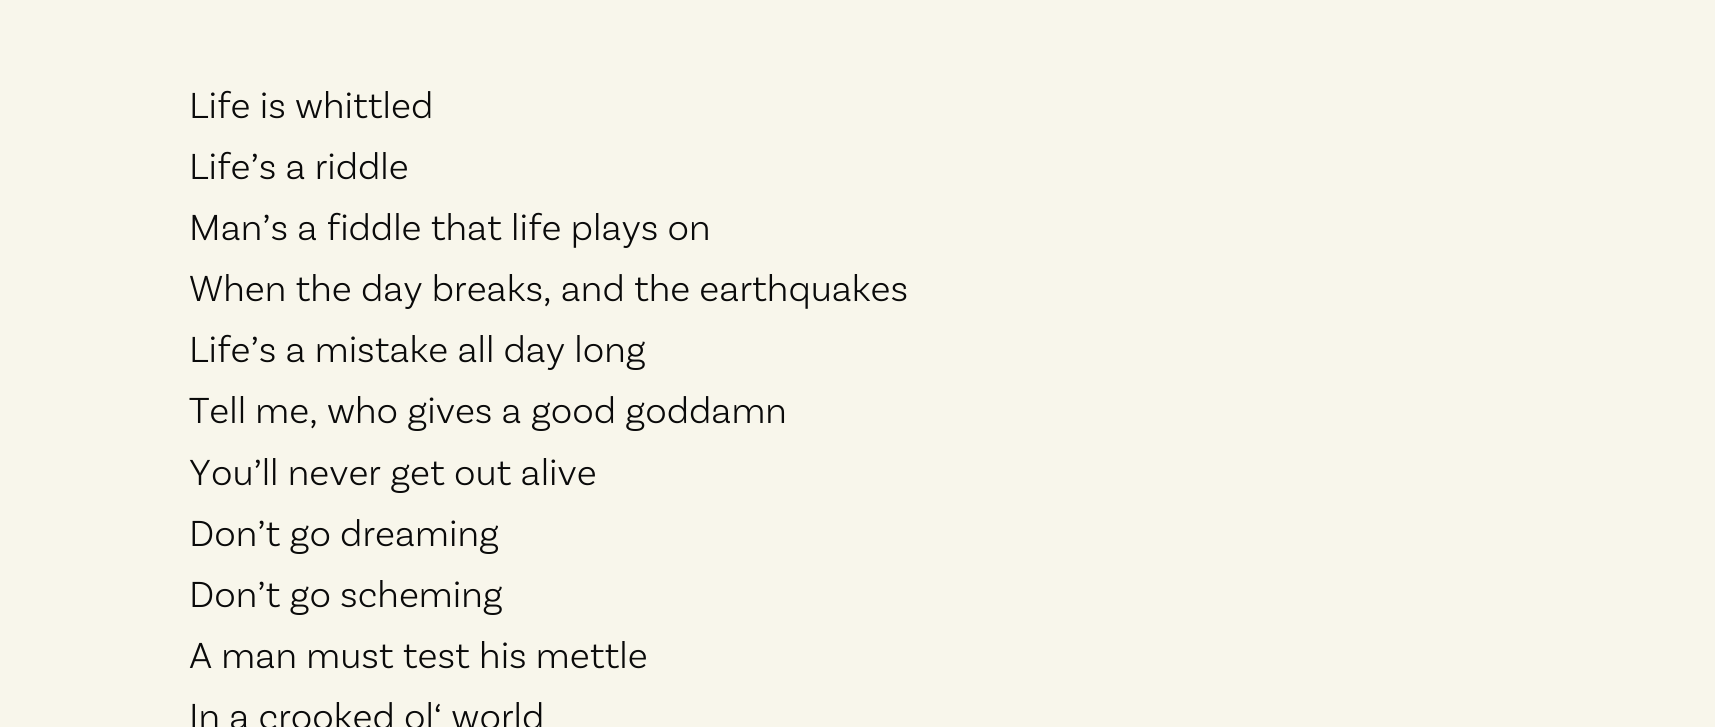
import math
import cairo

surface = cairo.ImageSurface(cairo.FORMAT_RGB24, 1715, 727)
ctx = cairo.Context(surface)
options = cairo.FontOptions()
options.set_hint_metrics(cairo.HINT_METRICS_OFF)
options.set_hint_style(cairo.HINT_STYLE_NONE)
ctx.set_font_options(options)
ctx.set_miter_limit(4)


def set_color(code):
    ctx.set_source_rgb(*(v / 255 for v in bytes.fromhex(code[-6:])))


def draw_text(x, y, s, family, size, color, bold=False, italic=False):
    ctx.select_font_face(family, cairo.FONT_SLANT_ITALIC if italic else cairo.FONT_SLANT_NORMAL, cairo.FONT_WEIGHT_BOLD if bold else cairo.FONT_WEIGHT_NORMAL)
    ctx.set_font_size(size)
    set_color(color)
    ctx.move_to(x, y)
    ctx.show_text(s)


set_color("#f8f6eb")
ctx.paint()
draw_text(189, 118, "Life is whittled", "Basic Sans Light", 38.25, "#0a0a0a")
draw_text(189, 179, "Life’s a riddle", "Basic Sans Light", 38.25, "#0a0a0a")
draw_text(189, 240, "Man’s a fiddle that life plays on", "Basic Sans Light", 38.25, "#0a0a0a")
draw_text(189, 301, "When the day breaks, and the earthquakes", "Basic Sans Light", 38.25, "#0a0a0a")
draw_text(189, 362, "Life’s a mistake all day long", "Basic Sans Light", 38.25, "#0a0a0a")
draw_text(189, 423, "Tell me, who gives a good goddamn", "Basic Sans Light", 38.25, "#0a0a0a")
draw_text(189, 485, "You’ll never get out alive", "Basic Sans Light", 38.25, "#0a0a0a")
draw_text(189, 546, "Don’t go dreaming", "Basic Sans Light", 38.25, "#0a0a0a")
draw_text(189, 607, "Don’t go scheming", "Basic Sans Light", 38.25, "#0a0a0a")
draw_text(189, 668, "A man must test his mettle", "Basic Sans Light", 38.25, "#0a0a0a")
draw_text(189, 729, "In a crooked ol‘ world", "Basic Sans Light", 38.25, "#0a0a0a")
surface.write_to_png("output.png")
